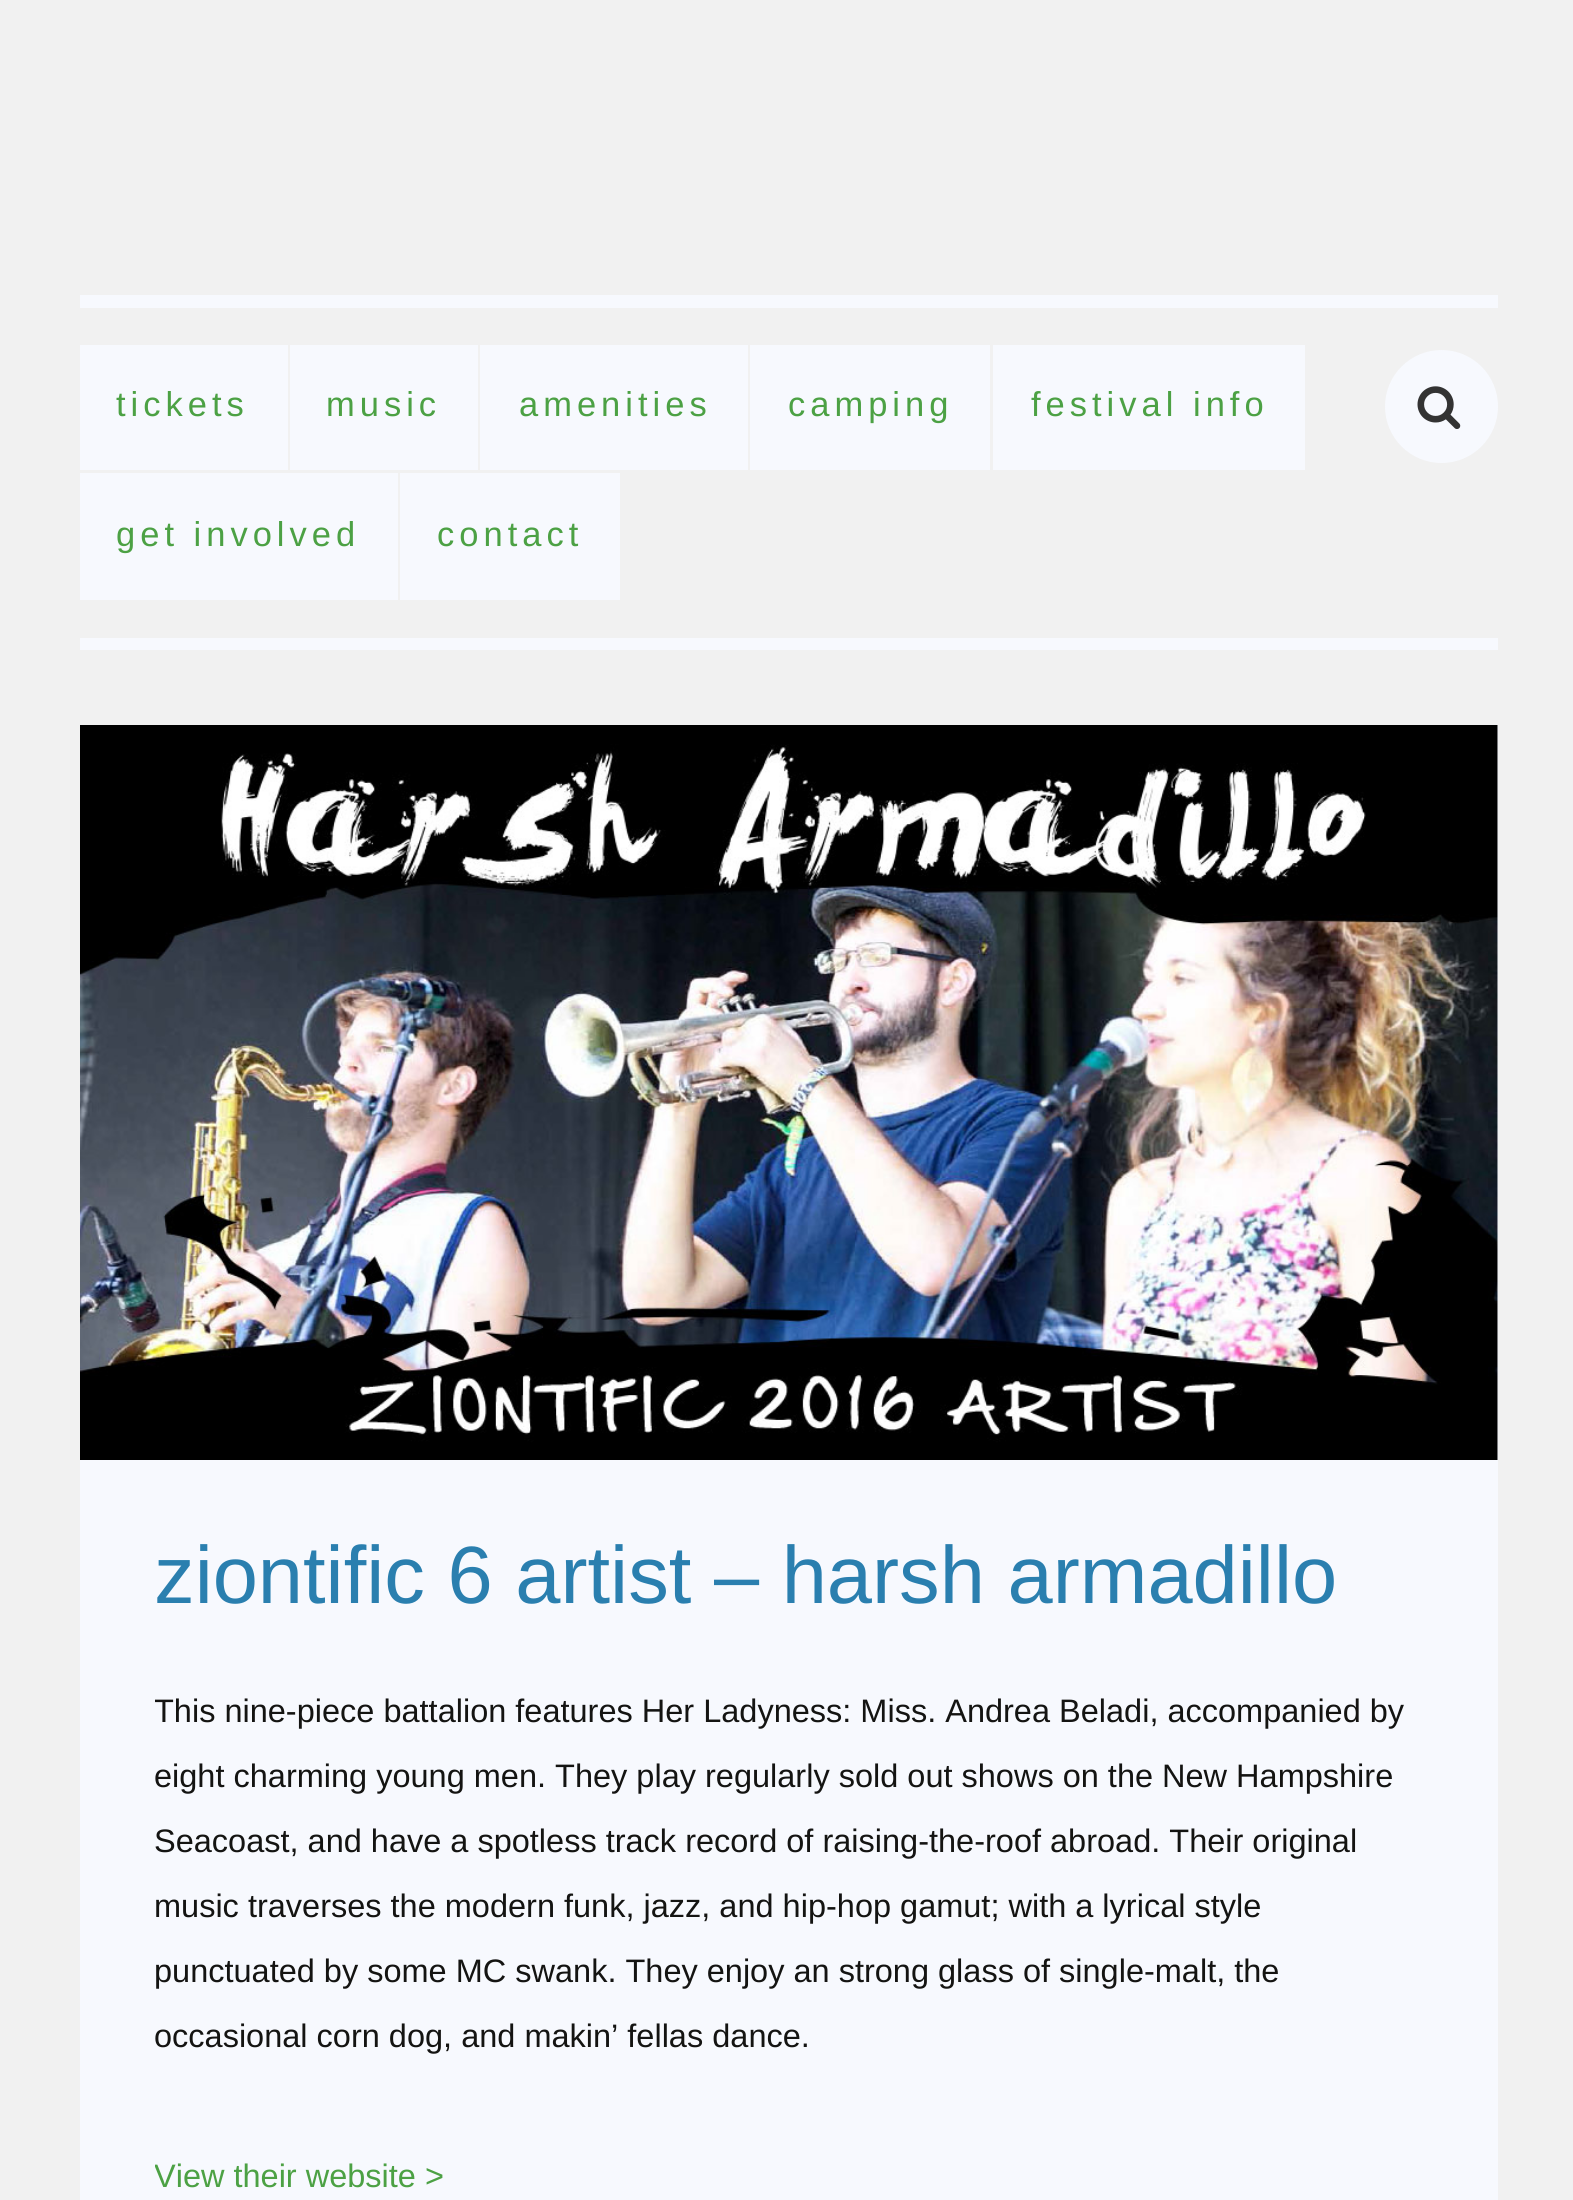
import math
import cairo

surface = cairo.ImageSurface(cairo.FORMAT_RGB24, 1573, 2200)
ctx = cairo.Context(surface)
options = cairo.FontOptions()
options.set_hint_metrics(cairo.HINT_METRICS_OFF)
options.set_hint_style(cairo.HINT_STYLE_NONE)
ctx.set_font_options(options)
ctx.set_miter_limit(4)


def set_color(code):
    ctx.set_source_rgb(*(v / 255 for v in bytes.fromhex(code[-6:])))


def draw_text(x, y, s, family, size, color, bold=False, italic=False):
    ctx.select_font_face(family, cairo.FONT_SLANT_ITALIC if italic else cairo.FONT_SLANT_NORMAL, cairo.FONT_WEIGHT_BOLD if bold else cairo.FONT_WEIGHT_NORMAL)
    ctx.set_font_size(size)
    set_color(color)
    ctx.move_to(x, y)
    ctx.show_text(s)


def draw_spaced(x, y, s, letter, word):
    ctx.move_to(x, y)
    for ch in s:
        ctx.show_text(ch)
        ctx.rel_move_to(letter + word * (ch == ' '), 0)


def fill_rect(x, y, w, h, color):
    set_color(color)
    ctx.rectangle(x, y, w, h)
    ctx.fill()


def draw_image(path, x, y, w, h):
    ctx.save()
    ctx.set_source_surface(cairo.ImageSurface.create_from_png(path), x, y)
    ctx.rectangle(x, y, w, h)
    ctx.fill()
    ctx.restore()


set_color("#f1f1f1")
ctx.paint()
fill_rect(80, 295, 1418, 13, "#f7f9fe")
fill_rect(80, 638, 1418, 12, "#f7f9fe")
fill_rect(80, 345, 208, 125, "#f7f9fe")
ctx.select_font_face("Liberation Sans")
ctx.set_font_size(34.5)
set_color("#4ca144")
draw_spaced(116, 416, "tickets", 5, 0)
fill_rect(290, 345, 188, 125, "#f7f9fe")
set_color("#4ca144")
draw_spaced(326, 416, "music", 5, 0)
fill_rect(480, 345, 268, 125, "#f7f9fe")
set_color("#4ca144")
draw_spaced(519, 416, "amenities", 5, 0)
fill_rect(750, 345, 240, 125, "#f7f9fe")
set_color("#4ca144")
draw_spaced(788, 416, "camping", 5, 0)
fill_rect(993, 345, 312, 125, "#f7f9fe")
set_color("#4ca144")
draw_spaced(1031, 416, "festival info", 5, 0)
fill_rect(80, 473, 318, 127, "#f7f9fe")
set_color("#4ca144")
draw_spaced(116, 546, "get involved", 5, 0)
fill_rect(400, 473, 220, 127, "#f7f9fe")
set_color("#4ca144")
draw_spaced(437, 546, "contact", 5, 0)
set_color("#f7f9fe")
ctx.new_path()
ctx.arc(1441.5, 406.5, 56.5, 0, 2 * math.pi)
ctx.fill()
draw_image("assets/img1.png", 1417, 386, 44, 43)
fill_rect(80, 725, 1418, 1475, "#f7f9fe")
draw_image("assets/img2.png", 80, 725, 1418, 735)
draw_text(154, 1603, "ziontific 6 artist – harsh armadillo", "Liberation Sans", 81.25, "#2a7faf")
ctx.save()
ctx.rectangle(155, 1643, 1268, 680)
ctx.clip()
draw_text(154, 1722, "This nine-piece battalion features Her Ladyness: Miss. Andrea Beladi, accompanied by", "Liberation Sans", 32.5, "#141412")
ctx.restore()
draw_text(154, 1787, "eight charming young men. They play regularly sold out shows on the New Hampshire", "Liberation Sans", 32.5, "#141412")
draw_text(154, 1852, "Seacoast, and have a spotless track record of raising-the-roof abroad. Their original", "Liberation Sans", 32.5, "#141412")
draw_text(154, 1917, "music traverses the modern funk, jazz, and hip-hop gamut; with a lyrical style", "Liberation Sans", 32.5, "#141412")
draw_text(154, 1982, "punctuated by some MC swank. They enjoy an strong glass of single-malt, the", "Liberation Sans", 32.5, "#141412")
draw_text(154, 2047, "occasional corn dog, and makin’ fellas dance.", "Liberation Sans", 32.5, "#141412")
ctx.save()
ctx.rectangle(155, 1643, 1268, 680)
ctx.clip()
draw_text(154, 2187, "View their website >", "Liberation Sans", 32.5, "#4ca144")
ctx.restore()
surface.write_to_png("output.png")
